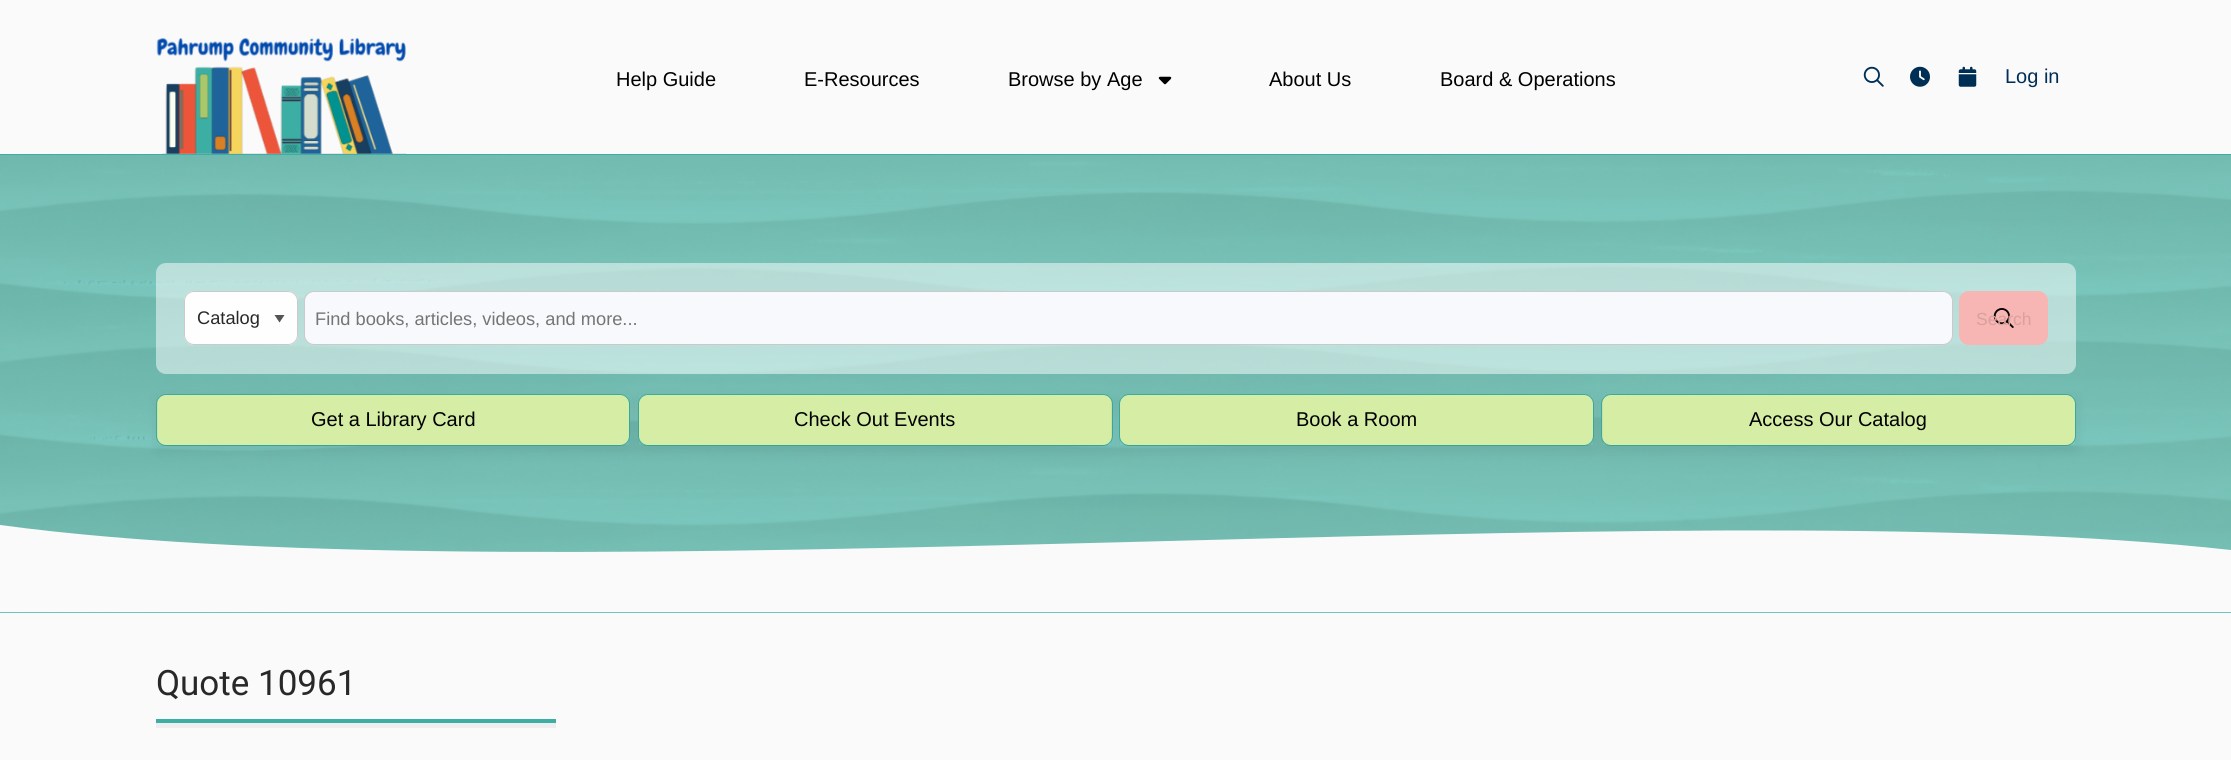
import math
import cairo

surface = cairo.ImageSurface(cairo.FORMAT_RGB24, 2231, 760)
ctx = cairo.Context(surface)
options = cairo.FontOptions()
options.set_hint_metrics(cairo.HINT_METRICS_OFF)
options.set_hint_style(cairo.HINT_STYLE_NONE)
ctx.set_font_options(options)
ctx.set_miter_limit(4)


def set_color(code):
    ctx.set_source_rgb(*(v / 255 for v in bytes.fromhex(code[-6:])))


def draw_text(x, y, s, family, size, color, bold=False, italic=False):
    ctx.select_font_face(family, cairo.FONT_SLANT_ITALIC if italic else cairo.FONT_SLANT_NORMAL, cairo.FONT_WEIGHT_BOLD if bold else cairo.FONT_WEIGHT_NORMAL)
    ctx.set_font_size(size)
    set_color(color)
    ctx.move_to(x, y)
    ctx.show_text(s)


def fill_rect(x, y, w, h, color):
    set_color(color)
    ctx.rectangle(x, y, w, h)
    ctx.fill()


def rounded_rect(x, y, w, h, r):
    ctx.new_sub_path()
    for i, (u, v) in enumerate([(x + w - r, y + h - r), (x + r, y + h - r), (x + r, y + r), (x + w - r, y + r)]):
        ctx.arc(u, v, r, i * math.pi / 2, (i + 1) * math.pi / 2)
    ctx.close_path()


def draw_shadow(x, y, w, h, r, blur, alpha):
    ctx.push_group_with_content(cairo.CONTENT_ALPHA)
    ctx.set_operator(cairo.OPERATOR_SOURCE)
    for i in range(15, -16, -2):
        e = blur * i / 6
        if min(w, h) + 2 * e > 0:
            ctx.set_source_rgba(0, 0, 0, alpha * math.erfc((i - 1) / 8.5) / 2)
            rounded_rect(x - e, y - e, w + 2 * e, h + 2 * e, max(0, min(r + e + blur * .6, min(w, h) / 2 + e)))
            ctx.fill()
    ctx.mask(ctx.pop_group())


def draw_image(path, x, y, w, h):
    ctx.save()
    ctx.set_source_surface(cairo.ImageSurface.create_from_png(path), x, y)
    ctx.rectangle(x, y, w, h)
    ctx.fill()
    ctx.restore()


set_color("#fafafa")
ctx.paint()
fill_rect(0, 612, 2231, 1, "#79c6bf")
draw_image("assets/img1.png", 156, 37, 251, 117)
draw_text(616, 86, "Help Guide", "Liberation Sans", 20, "#000000")
draw_text(804, 86, "E-Resources", "Liberation Sans", 20, "#000000")
draw_text(1008, 86, "Browse by Age", "Liberation Sans", 20, "#000000")
draw_image("assets/img2.png", 1158, 76, 14, 9)
draw_text(1269, 86, "About Us", "Liberation Sans", 20, "#000000")
draw_text(1440, 86, "Board & Operations", "Liberation Sans", 20, "#000000")
draw_image("assets/img3.png", 1863, 66, 21, 21)
draw_image("assets/img4.png", 1910, 66, 20, 21)
draw_image("assets/img5.png", 1958, 66, 19, 21)
draw_text(2005, 83, "Log in", "Liberation Sans", 20, "#002f56")
fill_rect(0, 154, 2231, 1, "#3caea3")
draw_image("assets/img7.png", 0, 155, 2231, 458)
ctx.set_source_rgba(1, 1, 1, 0.5)
rounded_rect(156, 263, 1920, 111, 10)
ctx.fill()
set_color("#fefefe")
rounded_rect(184, 291, 114, 54, 10)
ctx.fill()
set_color("#545454")
ctx.new_path()
ctx.move_to(274.5, 315)
ctx.line_to(284.5, 315)
ctx.line_to(279.5, 322.5)
ctx.close_path()
ctx.fill()
rounded_rect(184.5, 291.5, 113, 53, 9.5)
set_color("#cacaca")
ctx.set_line_width(1)
ctx.stroke()
draw_text(197, 324, "Catalog", "Liberation Sans", 18.25, "#282828")
set_color("#f8f9fc")
rounded_rect(304.5, 291.5, 1648, 53, 9.5)
ctx.fill_preserve()
set_color("#cacaca")
ctx.stroke()
draw_text(315, 325, "Find books, articles, videos, and more...", "Liberation Sans", 18.25, "#757575")
set_color("#f7b6b4")
rounded_rect(1959, 291, 89, 54, 10)
ctx.fill()
draw_image("assets/img6.png", 1993, 308, 21, 20)
draw_text(1976, 325, "Search", "Liberation Sans", 17.5, "#d9a09e")
set_color("#d5eda4")
rounded_rect(156.5, 394.5, 473, 51, 9.5)
ctx.fill_preserve()
set_color("#3caea3")
ctx.stroke()
set_color("#d5eda4")
rounded_rect(638.5, 394.5, 474, 51, 9.5)
ctx.fill_preserve()
set_color("#3caea3")
ctx.stroke()
ctx.save()
ctx.set_fill_rule(cairo.FILL_RULE_EVEN_ODD)
ctx.new_path()
ctx.move_to(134, 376)
ctx.line_to(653, 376)
ctx.line_to(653, 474)
ctx.line_to(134, 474)
ctx.close_path()
ctx.move_to(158, 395)
ctx.line_to(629, 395)
ctx.line_to(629, 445)
ctx.line_to(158, 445)
ctx.close_path()
ctx.clip()
set_color("#000000")
draw_shadow(158, 400, 471, 50, 0, 7.5, 0.08)
ctx.restore()
draw_text(311, 426, "Get a Library Card", "Liberation Sans", 20, "#000000")
set_color("#d5eda4")
rounded_rect(1119.5, 394.5, 474, 51, 9.5)
ctx.fill_preserve()
set_color("#3caea3")
ctx.stroke()
ctx.save()
ctx.set_fill_rule(cairo.FILL_RULE_EVEN_ODD)
ctx.new_path()
ctx.move_to(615, 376)
ctx.line_to(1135, 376)
ctx.line_to(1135, 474)
ctx.line_to(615, 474)
ctx.close_path()
ctx.move_to(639, 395)
ctx.line_to(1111, 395)
ctx.line_to(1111, 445)
ctx.line_to(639, 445)
ctx.close_path()
ctx.clip()
set_color("#000000")
draw_shadow(639, 400, 472, 50, 0, 7.5, 0.08)
ctx.restore()
draw_text(794, 426, "Check Out Events", "Liberation Sans", 20, "#000000")
set_color("#d5eda4")
rounded_rect(1601.5, 394.5, 474, 51, 9.5)
ctx.fill_preserve()
set_color("#3caea3")
ctx.stroke()
ctx.save()
ctx.set_fill_rule(cairo.FILL_RULE_EVEN_ODD)
ctx.new_path()
ctx.move_to(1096, 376)
ctx.line_to(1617, 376)
ctx.line_to(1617, 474)
ctx.line_to(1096, 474)
ctx.close_path()
ctx.move_to(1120, 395)
ctx.line_to(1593, 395)
ctx.line_to(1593, 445)
ctx.line_to(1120, 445)
ctx.close_path()
ctx.clip()
set_color("#000000")
draw_shadow(1120, 400, 473, 50, 0, 7.5, 0.08)
ctx.restore()
draw_text(1296, 426, "Book a Room", "Liberation Sans", 20, "#000000")
ctx.save()
ctx.set_fill_rule(cairo.FILL_RULE_EVEN_ODD)
ctx.new_path()
ctx.move_to(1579, 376)
ctx.line_to(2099, 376)
ctx.line_to(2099, 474)
ctx.line_to(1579, 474)
ctx.close_path()
ctx.move_to(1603, 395)
ctx.line_to(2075, 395)
ctx.line_to(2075, 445)
ctx.line_to(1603, 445)
ctx.close_path()
ctx.clip()
set_color("#000000")
draw_shadow(1603, 400, 472, 50, 0, 7.5, 0.08)
ctx.restore()
draw_text(1749, 426, "Access Our Catalog", "Liberation Sans", 20, "#000000")
set_color("#fafafa")
ctx.new_path()
ctx.move_to(0, 525)
ctx.curve_to(558, 600, 1673, 488, 2231, 550)
ctx.line_to(2231, 612)
ctx.line_to(0, 612)
ctx.close_path()
ctx.fill()
set_color("#eeeeee")
ctx.new_path()
ctx.move_to(156, 653)
ctx.line_to(156, 728)
ctx.line_to(556, 728)
ctx.line_to(556, 722)
ctx.line_to(156, 722)
ctx.close_path()
ctx.fill()
fill_rect(156, 719, 400, 4, "#3caea3")
draw_text(156, 695, "Quote 10961", "Roboto", 35, "#282828")
surface.write_to_png("output.png")
